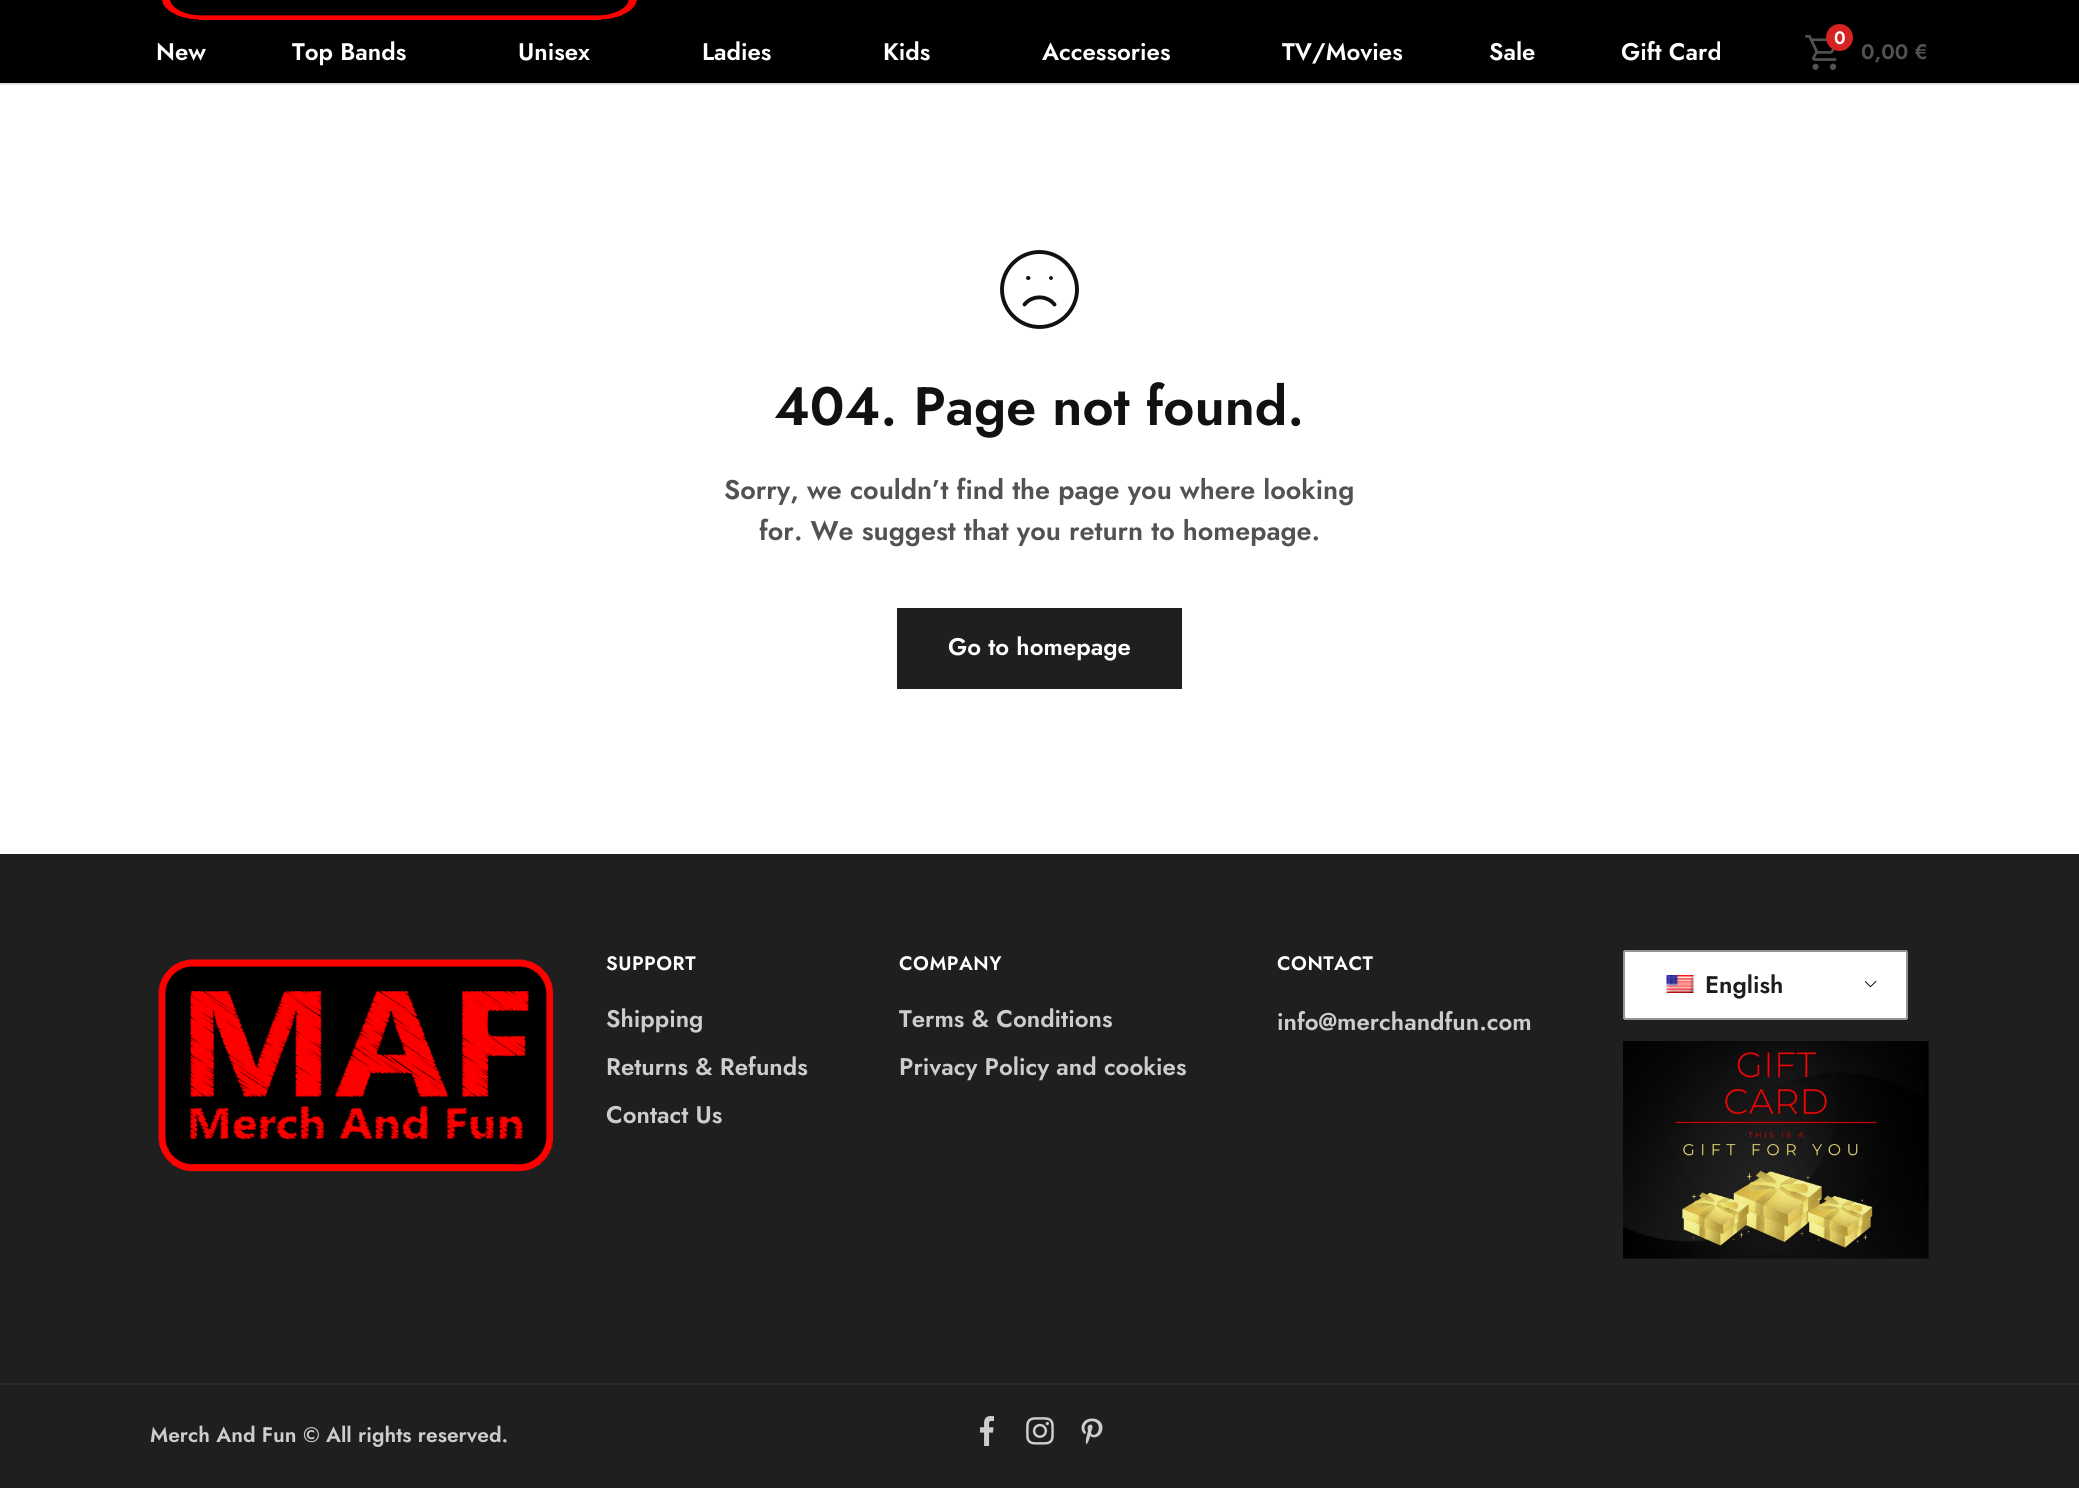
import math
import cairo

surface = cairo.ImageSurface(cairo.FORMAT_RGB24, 2079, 1488)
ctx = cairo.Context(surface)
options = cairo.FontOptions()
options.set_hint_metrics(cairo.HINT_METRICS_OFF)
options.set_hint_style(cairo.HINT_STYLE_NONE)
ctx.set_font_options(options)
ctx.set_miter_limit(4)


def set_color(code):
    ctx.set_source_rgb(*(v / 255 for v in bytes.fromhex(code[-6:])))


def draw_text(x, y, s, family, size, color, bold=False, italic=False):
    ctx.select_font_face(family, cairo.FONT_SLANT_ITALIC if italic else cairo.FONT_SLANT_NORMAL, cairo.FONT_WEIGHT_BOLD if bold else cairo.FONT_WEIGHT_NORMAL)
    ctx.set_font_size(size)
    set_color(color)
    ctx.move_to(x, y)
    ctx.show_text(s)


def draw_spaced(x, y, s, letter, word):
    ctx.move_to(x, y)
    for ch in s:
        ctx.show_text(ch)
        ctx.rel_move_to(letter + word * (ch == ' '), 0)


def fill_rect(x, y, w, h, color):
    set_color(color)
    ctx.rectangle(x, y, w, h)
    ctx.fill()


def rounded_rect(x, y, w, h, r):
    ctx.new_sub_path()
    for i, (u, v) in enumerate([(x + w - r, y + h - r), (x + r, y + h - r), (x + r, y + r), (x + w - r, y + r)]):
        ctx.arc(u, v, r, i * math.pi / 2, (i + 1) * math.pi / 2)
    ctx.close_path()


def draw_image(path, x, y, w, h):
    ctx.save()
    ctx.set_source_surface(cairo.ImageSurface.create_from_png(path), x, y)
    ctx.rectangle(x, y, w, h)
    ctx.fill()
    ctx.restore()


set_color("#ffffff")
ctx.paint()
fill_rect(0, 83, 2079, 2, "#e2e2e2")
fill_rect(0, 0, 2079, 83, "#000000")
draw_image("assets/img1.png", 161, 0, 476, 20)
draw_text(156, 60, "New", "Jost SemiBold", 24, "#ffffff")
draw_text(292, 60, "Top Bands", "Jost SemiBold", 24, "#ffffff")
draw_text(518, 60, "Unisex", "Jost SemiBold", 24, "#ffffff")
draw_text(702, 60, "Ladies", "Jost SemiBold", 24, "#ffffff")
draw_text(883, 60, "Kids", "Jost SemiBold", 24, "#ffffff")
draw_text(1042, 60, "Accessories", "Jost SemiBold", 24, "#ffffff")
draw_text(1282, 60, "TV/Movies", "Jost SemiBold", 24, "#ffffff")
draw_text(1489, 60, "Sale", "Jost SemiBold", 24, "#ffffff")
draw_text(1621, 60, "Gift Card", "Jost SemiBold", 24, "#ffffff")
draw_image("assets/img2.png", 1805, 35, 32, 35)
set_color("#d52222")
ctx.arc(1839.5, 37.5, 13.5, 0, 2 * math.pi)
ctx.fill()
draw_text(1834, 44, "0", "Jost SemiBold", 18, "#ffffff")
draw_text(1861, 59, "0,00 €", "Jost SemiBold", 21, "#525252")
ctx.new_path()
ctx.move_to(1054.5, 304.5)
ctx.curve_to(1047, 295, 1032, 295, 1024.5, 304.5)
ctx.move_to(1028, 278)
ctx.line_to(1028.5, 278)
ctx.move_to(1051, 278)
ctx.line_to(1051, 278)
ctx.move_to(1077, 289.5)
ctx.curve_to(1077, 310, 1060, 327, 1039.5, 327)
ctx.curve_to(1019, 327, 1002, 310, 1002, 289.5)
ctx.curve_to(1002, 269, 1019, 252, 1039.5, 252)
ctx.curve_to(1060, 252, 1077, 269, 1077, 289.5)
ctx.close_path()
set_color("#111111")
ctx.set_line_width(3.9)
ctx.set_line_cap(cairo.LINE_CAP_ROUND)
ctx.set_line_join(cairo.LINE_JOIN_ROUND)
ctx.stroke()
draw_text(774, 425, "404. Page not found.", "Jost SemiBold", 54, "#111111")
draw_text(724, 499, "Sorry, we couldn’t find the page you where looking", "Jost SemiBold", 27, "#525252")
draw_text(759, 540, "for. We suggest that you return to homepage.", "Jost SemiBold", 27, "#525252")
fill_rect(897, 608, 285, 81, "#1f1f1f")
draw_text(948, 655, "Go to homepage", "Jost SemiBold", 24, "#ffffff")
fill_rect(0, 854, 2079, 634, "#1f1f1f")
draw_image("assets/img3.png", 158, 959, 396, 213)
ctx.set_font_size(19.5)
set_color("#ffffff")
draw_spaced(606, 970, "SUPPORT", 0.5, 0)
draw_text(606, 1027, "Shipping", "Jost SemiBold", 24, "#cdcdcd")
draw_text(606, 1075, "Returns & Refunds", "Jost SemiBold", 24, "#cdcdcd")
draw_text(606, 1123, "Contact Us", "Jost SemiBold", 24, "#cdcdcd")
ctx.set_font_size(19.5)
set_color("#ffffff")
draw_spaced(899, 970, "COMPANY", 0.5, 0)
draw_text(899, 1027, "Terms & Conditions", "Jost SemiBold", 24, "#cdcdcd")
draw_text(899, 1075, "Privacy Policy and cookies", "Jost SemiBold", 24, "#cdcdcd")
ctx.set_font_size(19.5)
set_color("#ffffff")
draw_spaced(1277, 970, "CONTACT", 0.5, 0)
draw_text(1277, 1030, "info@merchandfun.com", "Jost SemiBold", 24, "#cdcdcd")
set_color("#ffffff")
rounded_rect(1623, 950, 285, 70, 3)
ctx.fill()
draw_image("assets/img4.png", 1865, 980, 12, 8)
rounded_rect(1624, 951, 283, 68, 2)
set_color("#949494")
ctx.set_line_width(2)
ctx.set_line_cap(cairo.LINE_CAP_BUTT)
ctx.set_line_join(cairo.LINE_JOIN_MITER)
ctx.stroke()
draw_image("assets/img5.png", 1666, 975, 28, 18)
draw_text(1705, 993, "English", "Jost SemiBold", 24, "#1e1e1e")
draw_image("assets/img6.png", 1623, 1041, 306, 218)
fill_rect(0, 1383, 2079, 2, "#2b2b2b")
draw_text(150, 1442, "Merch And Fun © All rights reserved.", "Jost SemiBold", 21, "#cdcdcd")
draw_image("assets/img7.png", 980, 1416, 14, 30)
draw_image("assets/img8.png", 1026, 1417, 28, 28)
draw_image("assets/img9.png", 1081, 1418, 22, 27)
surface.write_to_png("output.png")
